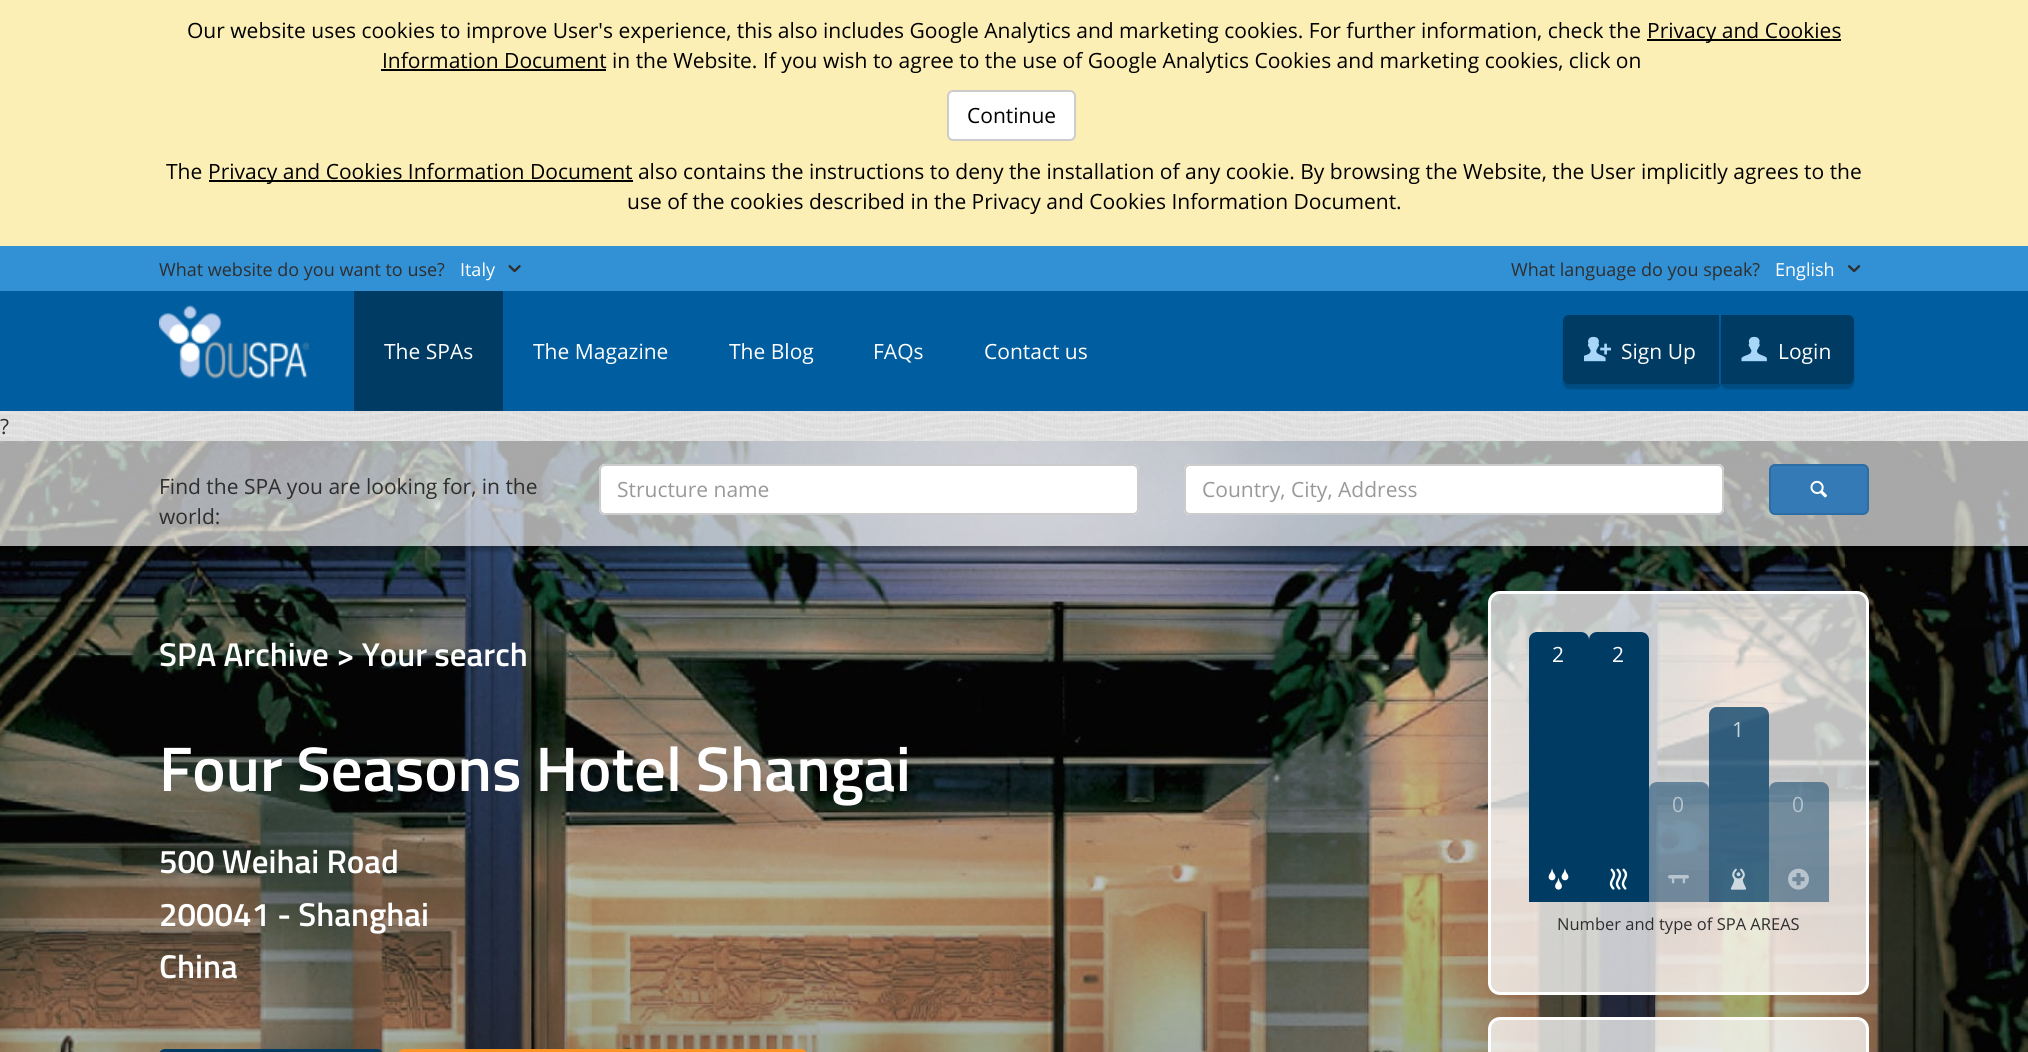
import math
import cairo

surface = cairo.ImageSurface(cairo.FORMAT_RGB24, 2028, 1052)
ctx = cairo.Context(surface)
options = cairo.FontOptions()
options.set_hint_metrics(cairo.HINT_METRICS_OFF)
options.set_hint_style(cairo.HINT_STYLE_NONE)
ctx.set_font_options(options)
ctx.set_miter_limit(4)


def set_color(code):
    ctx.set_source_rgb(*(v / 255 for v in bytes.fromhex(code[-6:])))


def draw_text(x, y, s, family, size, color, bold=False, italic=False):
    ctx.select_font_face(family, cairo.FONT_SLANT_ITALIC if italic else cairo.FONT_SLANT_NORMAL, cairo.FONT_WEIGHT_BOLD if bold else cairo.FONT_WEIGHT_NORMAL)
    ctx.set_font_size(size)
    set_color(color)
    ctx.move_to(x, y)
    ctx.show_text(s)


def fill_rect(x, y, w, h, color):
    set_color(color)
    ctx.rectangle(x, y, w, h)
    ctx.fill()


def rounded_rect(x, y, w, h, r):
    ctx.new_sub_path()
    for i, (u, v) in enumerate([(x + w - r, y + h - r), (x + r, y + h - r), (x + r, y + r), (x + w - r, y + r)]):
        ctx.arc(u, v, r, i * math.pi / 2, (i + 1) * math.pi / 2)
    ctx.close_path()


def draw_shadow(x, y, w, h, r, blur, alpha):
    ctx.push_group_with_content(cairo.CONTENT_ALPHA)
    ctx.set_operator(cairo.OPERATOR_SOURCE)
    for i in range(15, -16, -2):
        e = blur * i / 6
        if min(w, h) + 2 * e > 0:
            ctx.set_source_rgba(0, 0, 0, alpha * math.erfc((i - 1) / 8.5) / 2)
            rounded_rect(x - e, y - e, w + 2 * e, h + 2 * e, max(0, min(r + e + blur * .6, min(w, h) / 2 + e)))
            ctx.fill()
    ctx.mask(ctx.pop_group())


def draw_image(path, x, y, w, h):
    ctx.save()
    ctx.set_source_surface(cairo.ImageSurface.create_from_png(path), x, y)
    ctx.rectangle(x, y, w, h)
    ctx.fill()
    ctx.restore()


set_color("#3290d5")
ctx.paint()
fill_rect(0, 0, 2028, 246, "#fcefb5")
draw_text(187, 38, "Our website uses cookies to improve User's experience, this also includes Google Analytics and marketing cookies. For further information, check the", "Open Sans", 21, "#000000")
fill_rect(1647, 39, 194, 2, "#000000")
draw_text(1647, 38, "Privacy and Cookies", "Open Sans", 21, "#000000")
fill_rect(381, 69, 225, 2, "#000000")
draw_text(382, 68, "Information Document in the Website. If you wish to agree to the use of Google Analytics Cookies and marketing cookies, click on", "Open Sans", 21, "#000000")
set_color("#ffffff")
rounded_rect(948, 91, 127, 49, 5)
ctx.fill_preserve()
set_color("#cccccc")
ctx.stroke()
draw_text(967, 123, "Continue", "Open Sans", 21, "#000000")
draw_text(166, 179, "The", "Open Sans", 21, "#000000")
fill_rect(209, 180, 424, 2, "#000000")
draw_text(208, 179, "Privacy and Cookies Information Document also contains the instructions to deny the installation of any cookie. By browsing the Website, the User implicitly agrees to the", "Open Sans", 21, "#000000")
draw_text(627, 209, "use of the cookies described in the Privacy and Cookies Information Document.", "Open Sans", 21, "#000000")
draw_text(159, 276, "What website do you want to use?", "Open Sans", 18, "#2e2e2e")
draw_text(460, 276, "Italy", "Open Sans", 18, "#ffffff")
draw_image("assets/img1.png", 508, 265, 13, 8)
draw_text(1511, 276, "What language do you speak?", "Open Sans", 18, "#2e2e2e")
draw_text(1775, 276, "English", "Open Sans", 18, "#ffffff")
draw_image("assets/img2.png", 1848, 265, 13, 8)
fill_rect(0, 291, 2028, 120, "#005ea0")
draw_image("assets/img3.png", 159, 305, 150, 74)
fill_rect(354, 291, 149, 120, "#003b64")
draw_text(384, 359, "The SPAs", "Open Sans", 21, "#ffffff")
draw_text(533, 359, "The Magazine", "Open Sans", 21, "#ffffff")
draw_text(729, 359, "The Blog", "Open Sans", 21, "#ffffff")
draw_text(873, 359, "FAQs", "Open Sans", 21, "#ffffff")
draw_text(984, 359, "Contact us", "Open Sans", 21, "#ffffff")
set_color("#000000")
draw_shadow(1563, 320, 158, 69, 6, 1, 0.2)
set_color("#003b64")
ctx.new_path()
ctx.move_to(1569, 315)
ctx.line_to(1721, 315)
ctx.line_to(1721, 384)
ctx.line_to(1569, 384)
ctx.curve_to(1565.5, 384, 1563, 381.5, 1563, 378)
ctx.line_to(1563, 321)
ctx.curve_to(1563, 317.5, 1565.5, 315, 1569, 315)
ctx.close_path()
ctx.fill()
fill_rect(1719, 315, 2, 69, "#005d9f")
draw_image("assets/img4.png", 1584, 336, 27, 26)
draw_text(1621, 359, "Sign Up", "Open Sans", 21, "#ffffff")
set_color("#000000")
draw_shadow(1721, 320, 133, 69, 6, 1, 0.2)
set_color("#003b64")
ctx.new_path()
ctx.move_to(1721, 315)
ctx.line_to(1848, 315)
ctx.curve_to(1851.5, 315, 1854, 317.5, 1854, 321)
ctx.line_to(1854, 378)
ctx.curve_to(1854, 381.5, 1851.5, 384, 1848, 384)
ctx.line_to(1721, 384)
ctx.close_path()
ctx.fill()
draw_image("assets/img5.png", 1741, 336, 26, 26)
draw_text(1778, 359, "Login", "Open Sans", 21, "#ffffff")
draw_image("assets/img6.png", 0, 411, 2028, 30)
draw_text(0, 434, "?", "Open Sans", 21, "#2e2e2e")
draw_image("assets/img7.png", 0, 441, 2028, 611)
ctx.save()
ctx.rectangle(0, 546, 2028, 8)
ctx.clip()
set_color("#000000")
draw_shadow(0, 446, 2028, 105, 0, 2, 0.25)
ctx.restore()
ctx.set_source_rgba(1, 1, 1, 0.65)
ctx.rectangle(0, 441, 2028, 105)
ctx.fill()
draw_text(159, 494, "Find the SPA you are looking for, in the", "Open Sans", 21, "#2e2e2e")
draw_text(159, 524, "world:", "Open Sans", 21, "#2e2e2e")
set_color("#ffffff")
rounded_rect(599, 464, 540, 51, 6)
ctx.fill()
set_color("#ececec")
ctx.new_path()
ctx.move_to(604, 466)
ctx.line_to(1132, 466)
ctx.curve_to(1135, 466, 1137, 469, 1137, 471)
ctx.curve_to(1137, 468, 1135, 465, 1132, 465)
ctx.line_to(605, 465)
ctx.curve_to(602, 465, 600, 468, 600, 471)
ctx.curve_to(600, 469, 602, 466, 604, 466)
ctx.close_path()
ctx.fill()
rounded_rect(600, 465, 538, 49, 5)
set_color("#cccccc")
ctx.stroke()
draw_text(617, 497, "Structure name", "Open Sans", 21, "#999999")
set_color("#ffffff")
rounded_rect(1184, 464, 540, 51, 6)
ctx.fill()
set_color("#ececec")
ctx.new_path()
ctx.move_to(1190, 466)
ctx.line_to(1718, 466)
ctx.curve_to(1720, 466, 1722, 469, 1722, 471)
ctx.curve_to(1722, 468, 1720, 465, 1717, 465)
ctx.line_to(1190, 465)
ctx.curve_to(1187, 465, 1185, 468, 1185, 471)
ctx.curve_to(1185, 469, 1187, 466, 1190, 466)
ctx.close_path()
ctx.fill()
rounded_rect(1185, 465, 538, 49, 5)
set_color("#cccccc")
ctx.stroke()
draw_text(1202, 497, "Country, City, Address", "Open Sans", 21, "#999999")
set_color("#337ab7")
rounded_rect(1770, 465, 98, 49, 5)
ctx.fill_preserve()
set_color("#2e6da4")
ctx.stroke()
draw_image("assets/img8.png", 1810, 480, 17, 18)
draw_text(159, 666, "SPA Archive > Your search", "Titillium Web SemiBold", 33, "#ffffff")
draw_text(159, 791, "Four Seasons Hotel Shangai", "Titillium Web SemiBold", 63, "#ffffff")
draw_text(159, 873, "500 Weihai Road", "Titillium Web SemiBold", 33, "#ffffff")
draw_text(159, 926, "200041 - Shanghai", "Titillium Web SemiBold", 33, "#ffffff")
draw_text(159, 978, "China", "Titillium Web SemiBold", 33, "#ffffff")
set_color("#003b64")
rounded_rect(159, 1049, 224, 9, 6)
ctx.fill()
set_color("#ff9324")
rounded_rect(398, 1049, 409, 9, 6)
ctx.fill()
ctx.set_source_rgba(1, 1, 1, 0.75)
rounded_rect(1489.5, 592.5, 378, 401, 10.5)
ctx.fill_preserve()
set_color("#ffffff")
ctx.set_line_width(3)
ctx.stroke()
set_color("#003b64")
ctx.new_path()
ctx.move_to(1537, 632)
ctx.line_to(1581, 632)
ctx.curve_to(1585.5, 632, 1589, 635.5, 1589, 640)
ctx.line_to(1589, 902)
ctx.line_to(1529, 902)
ctx.line_to(1529, 640)
ctx.curve_to(1529, 635.5, 1532.5, 632, 1537, 632)
ctx.close_path()
ctx.fill()
draw_text(1552, 662, "2", "Open Sans", 21, "#ffffff")
draw_image("assets/img9.png", 1548, 868, 21, 22)
set_color("#003b64")
ctx.new_path()
ctx.move_to(1597, 632)
ctx.line_to(1641, 632)
ctx.curve_to(1645.5, 632, 1649, 635.5, 1649, 640)
ctx.line_to(1649, 902)
ctx.line_to(1589, 902)
ctx.line_to(1589, 640)
ctx.curve_to(1589, 635.5, 1592.5, 632, 1597, 632)
ctx.close_path()
ctx.fill()
draw_text(1612, 662, "2", "Open Sans", 21, "#ffffff")
draw_image("assets/img10.png", 1609, 868, 19, 22)
ctx.set_source_rgba(0, 0.231, 0.392, 0.75)
ctx.new_path()
ctx.move_to(1717, 707)
ctx.line_to(1761, 707)
ctx.curve_to(1765.5, 707, 1769, 710.5, 1769, 715)
ctx.line_to(1769, 902)
ctx.line_to(1709, 902)
ctx.line_to(1709, 715)
ctx.curve_to(1709, 710.5, 1712.5, 707, 1717, 707)
ctx.close_path()
ctx.fill()
draw_text(1732, 737, "1", "Open Sans", 21, "#ccd7de")
draw_image("assets/img11.png", 1730, 868, 17, 22)
ctx.set_source_rgba(0, 0.231, 0.392, 0.5)
ctx.new_path()
ctx.move_to(1657, 782)
ctx.line_to(1701, 782)
ctx.curve_to(1705.5, 782, 1709, 785.5, 1709, 790)
ctx.line_to(1709, 902)
ctx.line_to(1649, 902)
ctx.line_to(1649, 790)
ctx.curve_to(1649, 785.5, 1652.5, 782, 1657, 782)
ctx.close_path()
ctx.fill()
draw_text(1672, 812, "0", "Open Sans", 21, "#b5c3cd")
draw_image("assets/img12.png", 1668, 875, 21, 9)
ctx.set_source_rgba(0, 0.231, 0.392, 0.5)
ctx.new_path()
ctx.move_to(1777, 782)
ctx.line_to(1821, 782)
ctx.curve_to(1825.5, 782, 1829, 785.5, 1829, 790)
ctx.line_to(1829, 902)
ctx.line_to(1769, 902)
ctx.line_to(1769, 790)
ctx.curve_to(1769, 785.5, 1772.5, 782, 1777, 782)
ctx.close_path()
ctx.fill()
draw_text(1792, 812, "0", "Open Sans", 21, "#b5c3cd")
draw_image("assets/img13.png", 1788, 868, 21, 22)
draw_text(1557, 930, "Number and type of SPA AREAS", "Open Sans", 16.5, "#2e2e2e")
ctx.set_source_rgba(1, 1, 1, 0.75)
rounded_rect(1489.5, 1018.5, 378, 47, 10.5)
ctx.fill_preserve()
set_color("#ffffff")
ctx.stroke()
surface.write_to_png("output.png")
